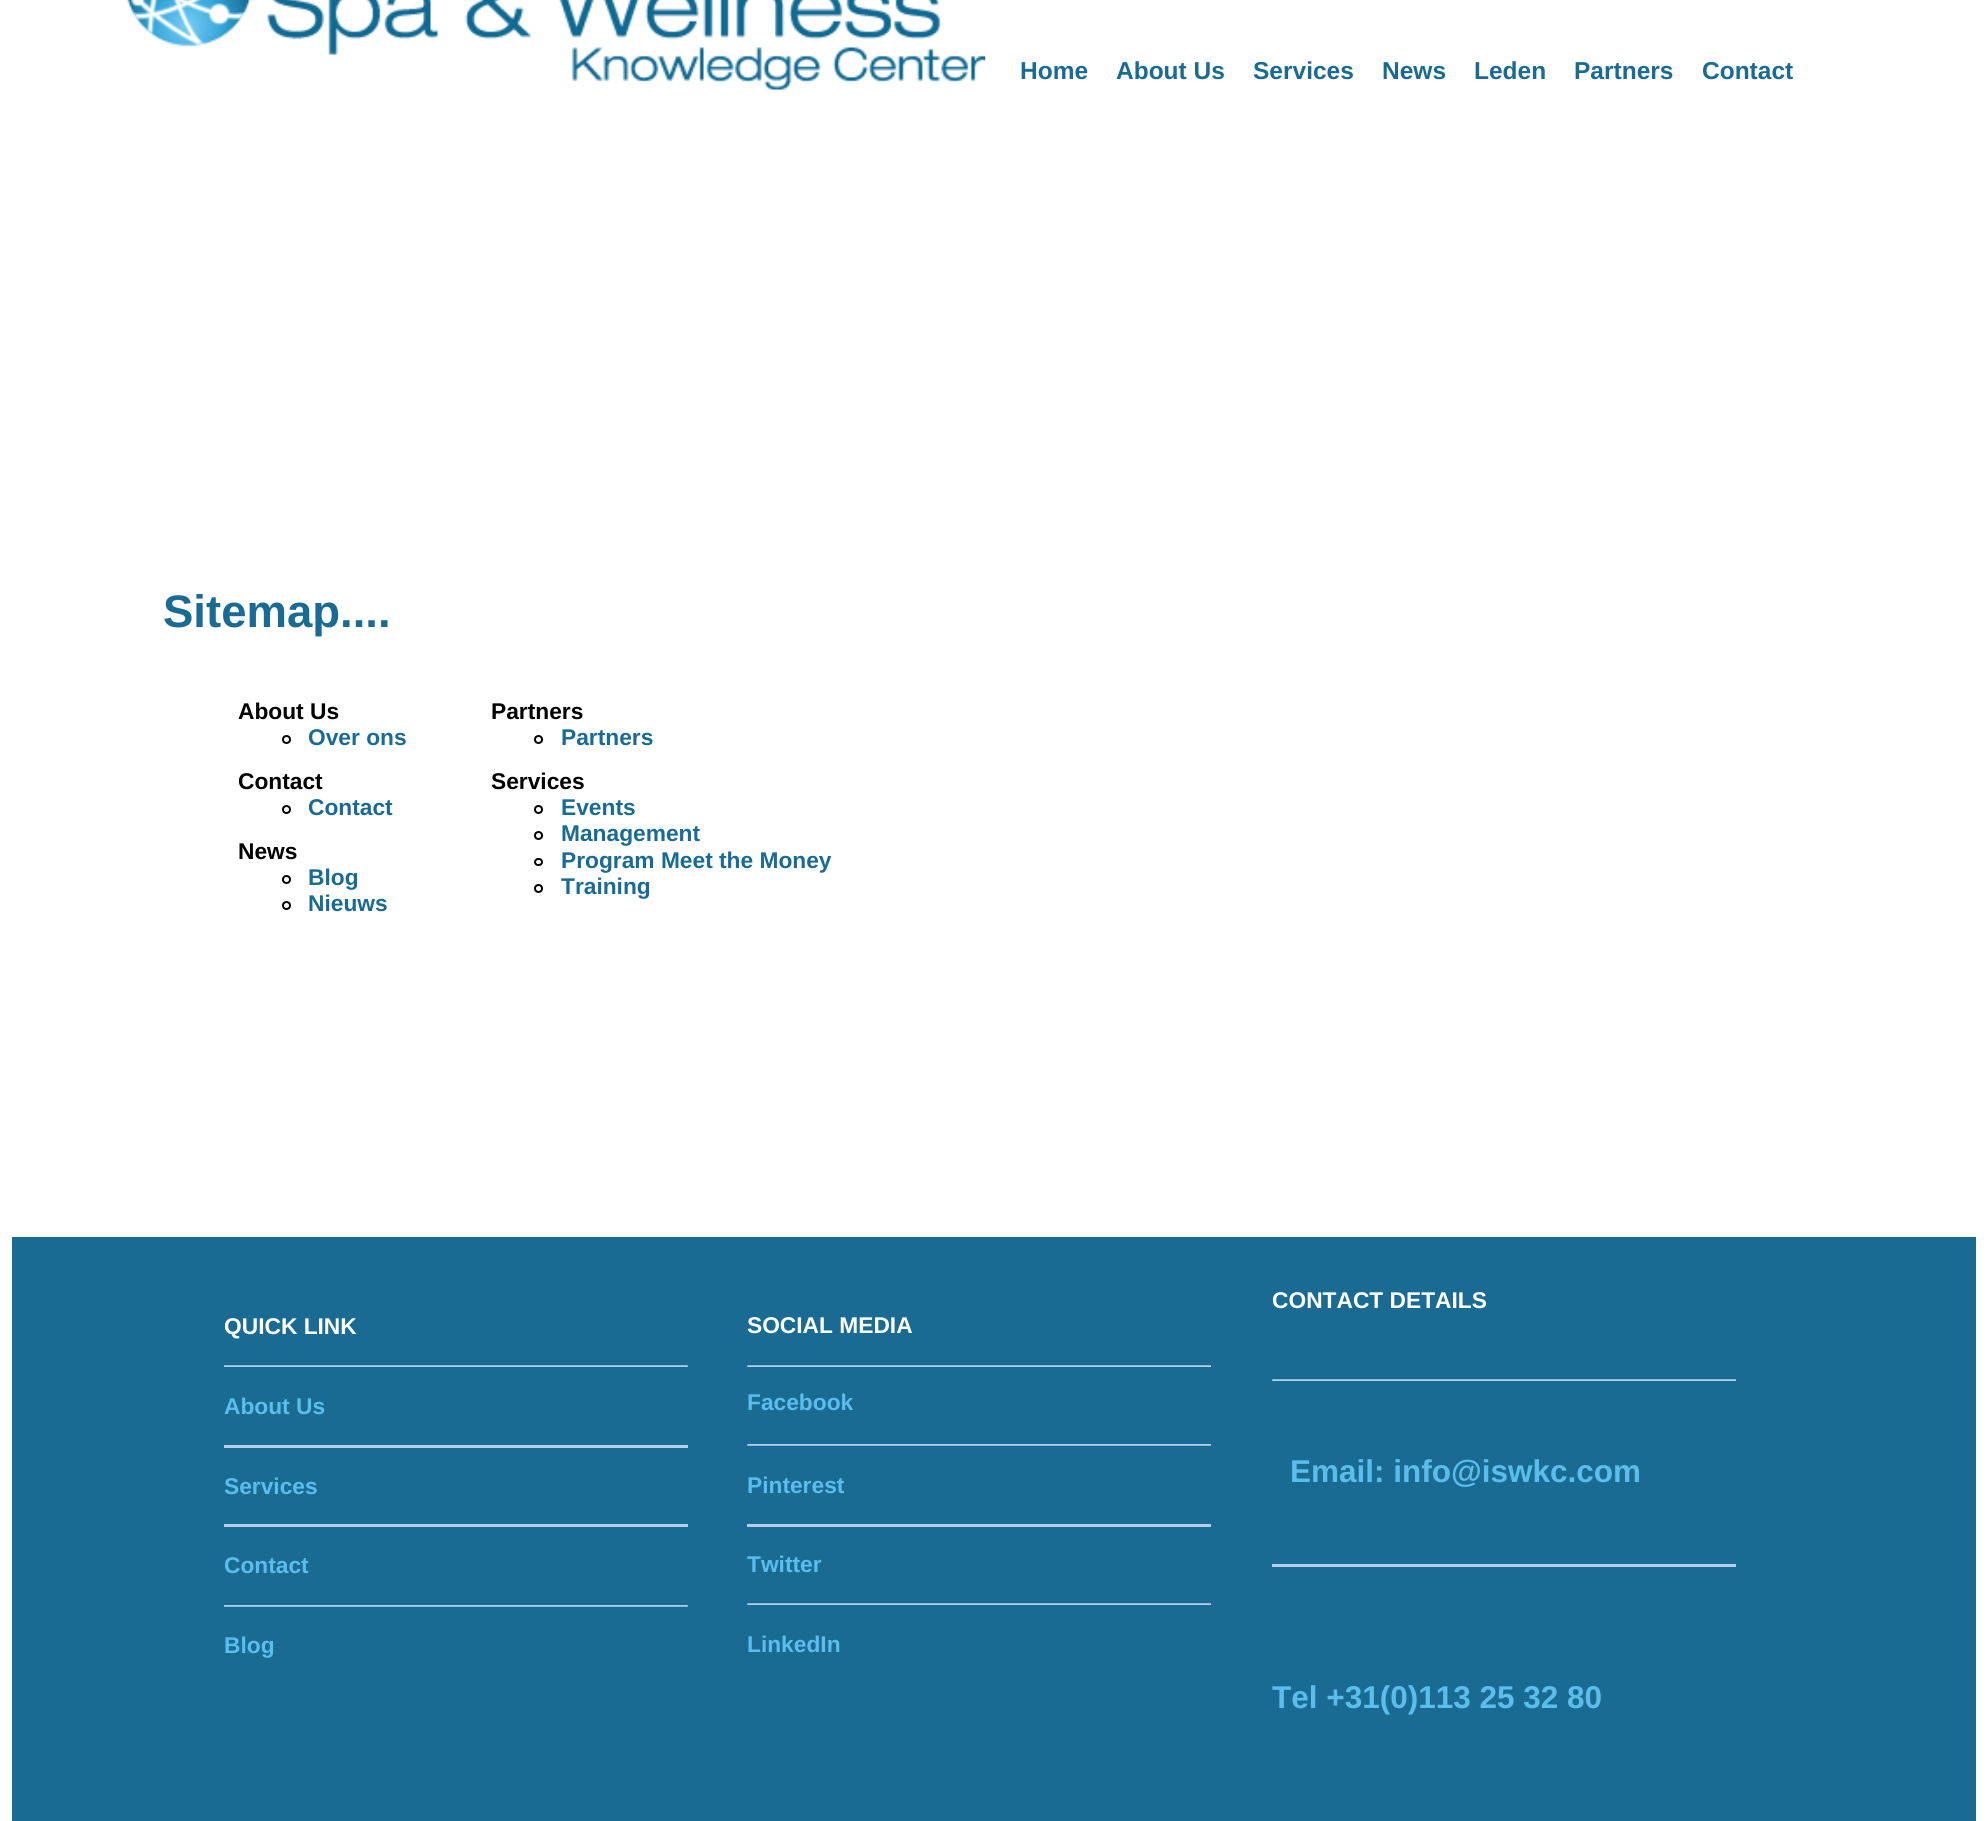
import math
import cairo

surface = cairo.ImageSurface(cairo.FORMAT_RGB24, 1988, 1821)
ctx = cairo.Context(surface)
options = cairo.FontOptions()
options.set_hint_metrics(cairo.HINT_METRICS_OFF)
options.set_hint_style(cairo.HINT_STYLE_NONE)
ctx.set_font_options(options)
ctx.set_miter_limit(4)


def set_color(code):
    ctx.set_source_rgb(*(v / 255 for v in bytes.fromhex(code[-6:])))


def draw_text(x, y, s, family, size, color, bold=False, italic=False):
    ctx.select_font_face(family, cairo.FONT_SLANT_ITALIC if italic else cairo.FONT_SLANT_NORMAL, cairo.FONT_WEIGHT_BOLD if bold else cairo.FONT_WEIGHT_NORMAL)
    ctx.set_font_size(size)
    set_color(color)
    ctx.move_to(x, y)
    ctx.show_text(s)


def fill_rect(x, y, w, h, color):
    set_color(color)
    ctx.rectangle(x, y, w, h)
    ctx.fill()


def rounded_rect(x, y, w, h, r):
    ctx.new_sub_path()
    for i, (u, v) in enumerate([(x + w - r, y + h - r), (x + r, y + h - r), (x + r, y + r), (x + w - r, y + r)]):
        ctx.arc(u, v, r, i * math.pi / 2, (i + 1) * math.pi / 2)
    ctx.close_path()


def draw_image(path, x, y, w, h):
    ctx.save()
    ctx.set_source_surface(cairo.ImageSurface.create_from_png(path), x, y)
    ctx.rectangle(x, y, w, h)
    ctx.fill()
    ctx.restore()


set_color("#ffffff")
ctx.paint()
draw_image("assets/img1.png", 127, 0, 859, 90)
draw_text(1020, 79, "Home", "Liberation Sans", 24.5, "#196b93", bold=True)
draw_text(1116, 79, "About Us", "Liberation Sans", 24.5, "#196b93", bold=True)
draw_text(1253, 79, "Services", "Liberation Sans", 24.5, "#196b93", bold=True)
draw_text(1382, 79, "News", "Liberation Sans", 24.5, "#196b93", bold=True)
draw_text(1474, 79, "Leden", "Liberation Sans", 24.5, "#196b93", bold=True)
draw_text(1574, 79, "Partners", "Liberation Sans", 24.5, "#196b93", bold=True)
draw_text(1702, 79, "Contact", "Liberation Sans", 24.5, "#196b93", bold=True)
draw_text(163, 627, "Sitemap....", "Liberation Sans", 45.5, "#196b93", bold=True)
draw_text(238, 719, "About Us", "Liberation Sans", 22.75, "#000000", bold=True)
ctx.new_path()
ctx.arc(286.5, 739.5, 3.5, 0, 2 * math.pi)
ctx.stroke()
draw_text(308, 745, "Over ons", "Liberation Sans", 22.75, "#196b93", bold=True)
draw_text(238, 789, "Contact", "Liberation Sans", 22.75, "#000000", bold=True)
ctx.new_path()
ctx.arc(286.5, 809.5, 3.5, 0, 2 * math.pi)
ctx.stroke()
draw_text(308, 815, "Contact", "Liberation Sans", 22.75, "#196b93", bold=True)
draw_text(238, 859, "News", "Liberation Sans", 22.75, "#000000", bold=True)
ctx.new_path()
ctx.arc(286.5, 879.5, 3.5, 0, 2 * math.pi)
ctx.stroke()
draw_text(308, 885, "Blog", "Liberation Sans", 22.75, "#196b93", bold=True)
ctx.new_path()
ctx.arc(286.5, 905.5, 3.5, 0, 2 * math.pi)
set_color("#000000")
ctx.stroke()
draw_text(308, 911, "Nieuws", "Liberation Sans", 22.75, "#196b93", bold=True)
draw_text(491, 719, "Partners", "Liberation Sans", 22.75, "#000000", bold=True)
ctx.new_path()
ctx.arc(538.5, 739.5, 3.5, 0, 2 * math.pi)
ctx.stroke()
draw_text(561, 745, "Partners", "Liberation Sans", 22.75, "#196b93", bold=True)
draw_text(491, 789, "Services", "Liberation Sans", 22.75, "#000000", bold=True)
ctx.new_path()
ctx.arc(538.5, 809.5, 3.5, 0, 2 * math.pi)
ctx.stroke()
draw_text(561, 815, "Events", "Liberation Sans", 22.75, "#196b93", bold=True)
ctx.new_path()
ctx.arc(538.5, 835.5, 3.5, 0, 2 * math.pi)
set_color("#000000")
ctx.stroke()
draw_text(561, 841, "Management", "Liberation Sans", 22.75, "#196b93", bold=True)
rounded_rect(535, 859, 7, 6, 3)
set_color("#000000")
ctx.stroke()
draw_text(561, 868, "Program Meet the Money", "Liberation Sans", 22.75, "#196b93", bold=True)
ctx.new_path()
ctx.arc(538.5, 888.5, 3.5, 0, 2 * math.pi)
set_color("#000000")
ctx.stroke()
draw_text(561, 894, "Training", "Liberation Sans", 22.75, "#196b93", bold=True)
fill_rect(12, 1237, 1964, 584, "#196b93")
draw_text(224, 1334, "QUICK LINK", "Liberation Sans", 22.75, "#ffffff", bold=True)
draw_image("assets/img2.png", 224, 1365, 464, 2)
draw_text(224, 1414, "About Us", "Liberation Sans", 22.75, "#5bbdea", bold=True)
fill_rect(224, 1445, 464, 3, "#b6cfe8")
draw_text(224, 1494, "Services", "Liberation Sans", 22.75, "#5bbdea", bold=True)
fill_rect(224, 1524, 464, 3, "#b6cfe8")
draw_text(224, 1573, "Contact", "Liberation Sans", 22.75, "#5bbdea", bold=True)
draw_image("assets/img3.png", 224, 1605, 464, 2)
draw_text(224, 1653, "Blog", "Liberation Sans", 22.75, "#5bbdea", bold=True)
draw_text(747, 1333, "SOCIAL MEDIA", "Liberation Sans", 22.75, "#ffffff", bold=True)
draw_image("assets/img4.png", 747, 1365, 464, 2)
draw_text(747, 1410, "Facebook", "Liberation Sans", 22.75, "#5bbdea", bold=True)
draw_image("assets/img5.png", 747, 1444, 464, 2)
draw_text(747, 1493, "Pinterest", "Liberation Sans", 22.75, "#5bbdea", bold=True)
fill_rect(747, 1524, 464, 3, "#b6cfe8")
draw_text(747, 1572, "Twitter", "Liberation Sans", 22.75, "#5bbdea", bold=True)
draw_image("assets/img4.png", 747, 1603, 464, 2)
draw_text(747, 1652, "LinkedIn", "Liberation Sans", 22.75, "#5bbdea", bold=True)
draw_text(1272, 1308, "CONTACT DETAILS", "Liberation Sans", 22.75, "#ffffff", bold=True)
draw_image("assets/img4.png", 1272, 1379, 464, 2)
draw_text(1290, 1482, "Email: info@iswkc.com", "Liberation Sans", 31.5, "#5bbdea", bold=True)
fill_rect(1272, 1564, 464, 3, "#b6cfe8")
draw_text(1272, 1708, "Tel +31(0)113 25 32 80", "Liberation Sans", 31.5, "#5bbdea", bold=True)
surface.write_to_png("output.png")
